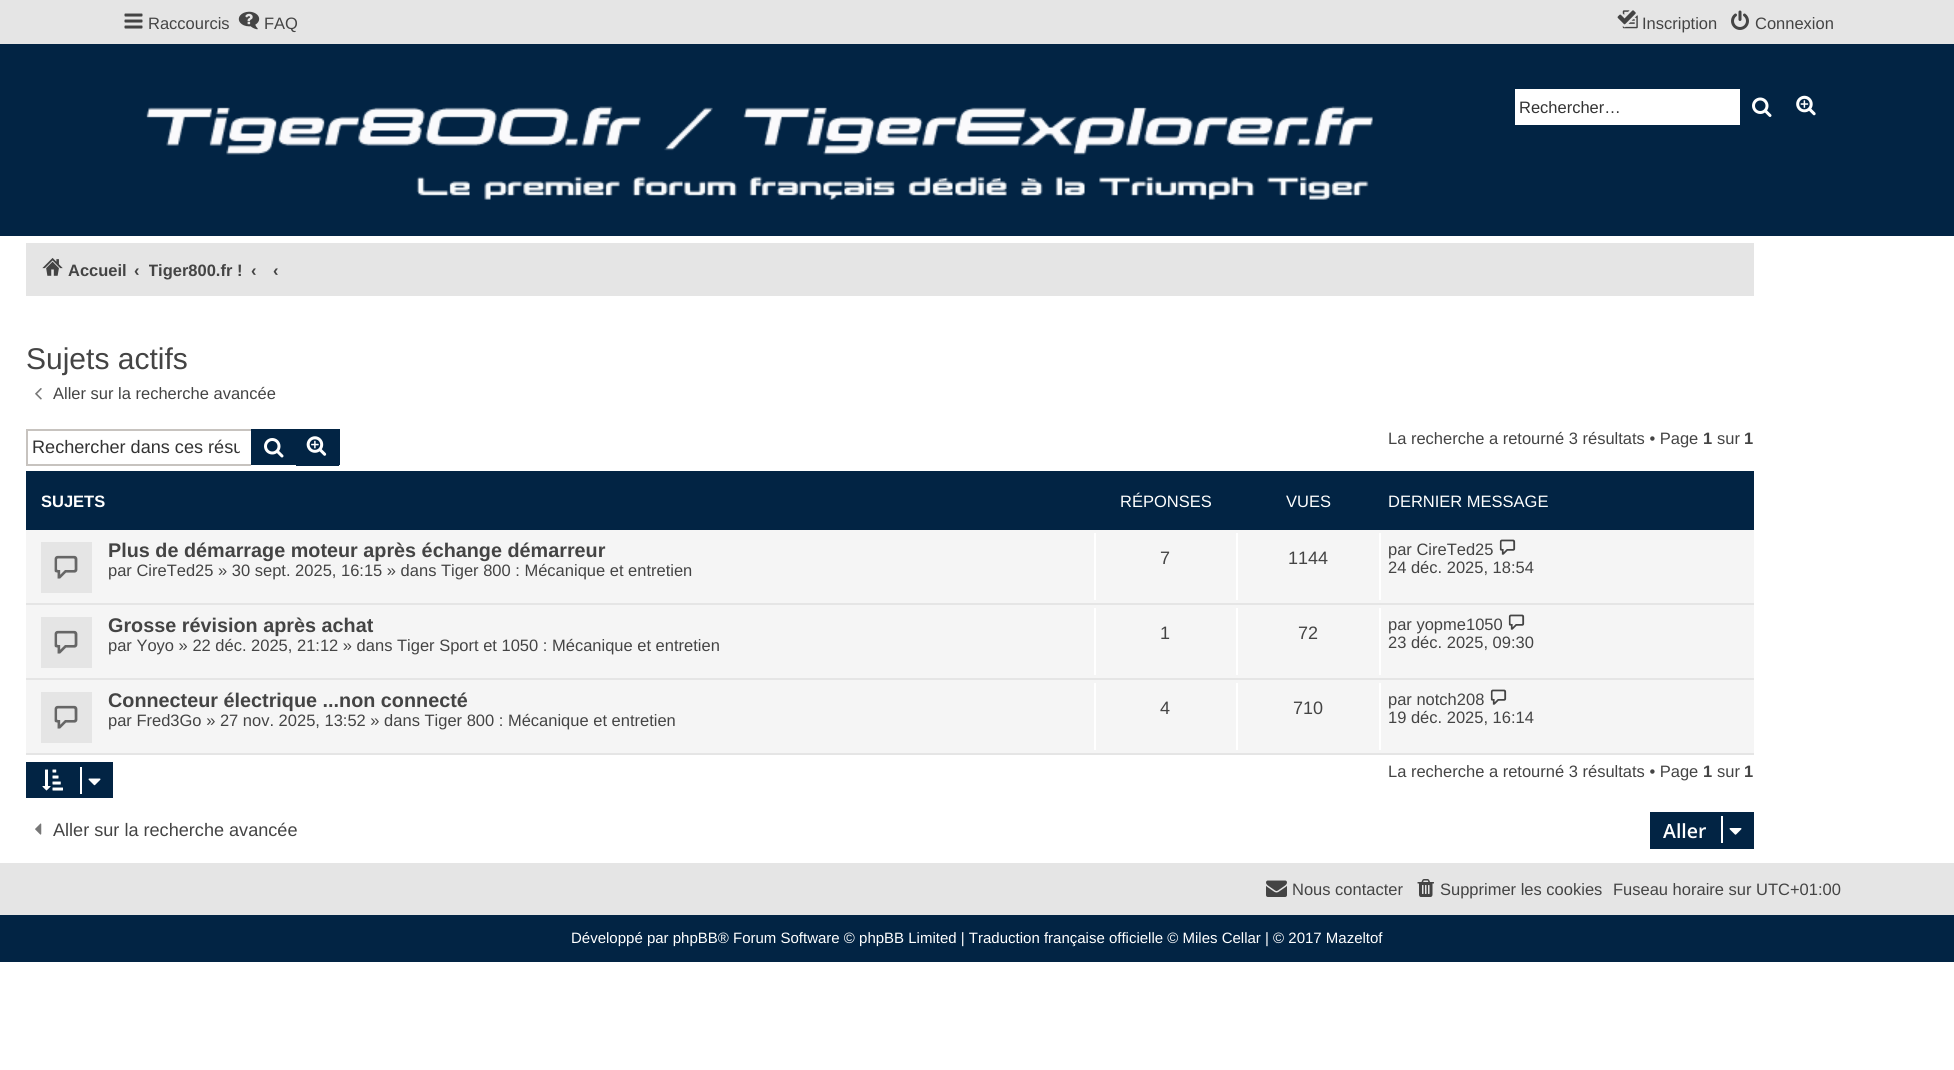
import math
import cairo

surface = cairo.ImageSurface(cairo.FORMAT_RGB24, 1954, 1070)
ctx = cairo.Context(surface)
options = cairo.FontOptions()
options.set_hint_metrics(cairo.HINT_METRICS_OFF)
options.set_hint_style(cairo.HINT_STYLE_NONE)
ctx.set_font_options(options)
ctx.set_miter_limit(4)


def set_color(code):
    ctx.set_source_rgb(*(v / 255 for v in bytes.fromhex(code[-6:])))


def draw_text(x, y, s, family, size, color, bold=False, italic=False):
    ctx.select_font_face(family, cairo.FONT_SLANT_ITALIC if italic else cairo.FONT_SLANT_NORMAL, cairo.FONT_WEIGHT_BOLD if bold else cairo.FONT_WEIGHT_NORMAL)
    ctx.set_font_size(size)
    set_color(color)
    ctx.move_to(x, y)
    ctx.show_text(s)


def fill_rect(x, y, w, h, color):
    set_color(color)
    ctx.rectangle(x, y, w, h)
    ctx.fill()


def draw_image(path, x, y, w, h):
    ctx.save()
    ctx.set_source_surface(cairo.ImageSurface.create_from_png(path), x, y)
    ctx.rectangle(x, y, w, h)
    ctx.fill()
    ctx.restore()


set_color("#ffffff")
ctx.paint()
fill_rect(0, 0, 1954, 44, "#e5e5e5")
draw_image("assets/img1.png", 124, 13, 19, 16)
draw_text(148, 29, "Raccourcis", "Liberation Sans", 16.5, "#444444")
draw_image("assets/img2.png", 238, 11, 22, 19)
draw_text(264, 29, "FAQ", "Liberation Sans", 16.5, "#444444")
draw_image("assets/img3.png", 1617, 10, 21, 19)
draw_text(1642, 29, "Inscription", "Liberation Sans", 16.5, "#444444")
draw_image("assets/img4.png", 1731, 10, 18, 20)
draw_text(1755, 29, "Connexion", "Liberation Sans", 16.5, "#444444")
fill_rect(0, 44, 1954, 192, "#022444")
draw_image("assets/img5.png", 146, 106, 1227, 94)
fill_rect(1515, 89, 225, 36, "#ffffff")
draw_text(1519, 113, "Rechercher…", "Liberation Sans", 16.5, "#333333")
draw_image("assets/img6.png", 1752, 97, 20, 20)
draw_image("assets/img7.png", 1796, 95, 20, 21)
fill_rect(26, 243, 1728, 53, "#e5e5e5")
draw_image("assets/img8.png", 42, 258, 21, 18)
draw_text(68, 276, "Accueil", "Liberation Sans", 16.5, "#444444", bold=True)
draw_text(134, 276, "‹", "Liberation Sans", 16.5, "#444444", bold=True)
ctx.save()
ctx.rectangle(149, 252, 94, 36)
ctx.clip()
draw_text(148, 276, "Tiger800.fr !", "Liberation Sans", 16.5, "#444444", bold=True)
ctx.restore()
draw_text(251, 276, "‹", "Liberation Sans", 16.5, "#444444", bold=True)
draw_text(273, 276, "‹", "Liberation Sans", 16.5, "#444444", bold=True)
draw_text(26, 369, "Sujets actifs", "Liberation Sans", 30, "#444444")
draw_image("assets/img9.png", 35, 388, 7, 12)
draw_text(53, 399, "Aller sur la recherche avancée", "Liberation Sans", 16.5, "#444444")
fill_rect(26, 429, 225, 2, "#c7c3bf")
fill_rect(26, 464, 225, 2, "#c7c3bf")
fill_rect(26, 429, 2, 36, "#c7c3bf")
ctx.save()
ctx.rectangle(32, 437, 208, 21)
ctx.clip()
draw_text(32, 453, "Rechercher dans ces résu", "Liberation Sans", 18.1, "#333333")
ctx.restore()
fill_rect(251, 429, 45, 36, "#022444")
draw_image("assets/img10.png", 264, 438, 20, 20)
fill_rect(296, 431, 42, 33, "#022444")
fill_rect(296, 429, 43, 2, "#022444")
fill_rect(338, 429, 2, 36, "#022444")
fill_rect(296, 464, 43, 2, "#022444")
draw_image("assets/img11.png", 306, 436, 21, 20)
draw_text(1388, 444, "La recherche a retourné 3 résultats • Page", "Liberation Sans", 16.5, "#444444")
draw_text(1703, 444, "1", "Liberation Sans", 16.5, "#444444", bold=True)
draw_text(1717, 444, "sur", "Liberation Sans", 16.5, "#444444")
draw_text(1744, 444, "1", "Liberation Sans", 16.5, "#444444", bold=True)
fill_rect(26, 471, 1728, 59, "#022444")
draw_text(41, 507, "SUJETS", "Liberation Sans", 16.5, "#ffffff", bold=True)
draw_text(1120, 507, "RÉPONSES", "Liberation Sans", 16.5, "#ffffff")
draw_text(1286, 507, "VUES", "Liberation Sans", 16.5, "#ffffff")
draw_text(1388, 507, "DERNIER MESSAGE", "Liberation Sans", 16.5, "#ffffff")
fill_rect(26, 530, 1728, 73, "#f5f5f5")
fill_rect(26, 603, 1728, 2, "#e5e5e5")
fill_rect(41, 542, 51, 51, "#e5e5e5")
draw_image("assets/img12.png", 54, 555, 24, 24)
draw_text(108, 557, "Plus de démarrage moteur après échange démarreur", "Liberation Sans", 19.8, "#444444", bold=True)
draw_text(108, 576, "par CireTed25 » 30 sept. 2025, 16:15 » dans Tiger 800 : Mécanique et entretien", "Liberation Sans", 16.5, "#444444")
fill_rect(1094, 533, 2, 67, "#ffffff")
draw_text(1160, 564, "7", "Liberation Sans", 18, "#444444")
fill_rect(1236, 533, 2, 67, "#ffffff")
draw_text(1288, 564, "1144", "Liberation Sans", 18, "#444444")
fill_rect(1379, 533, 2, 67, "#ffffff")
draw_text(1388, 555, "par CireTed25", "Liberation Sans", 16.5, "#444444")
draw_image("assets/img13.png", 1499, 539, 17, 16)
draw_text(1388, 573, "24 déc. 2025, 18:54", "Liberation Sans", 16.5, "#444444")
fill_rect(26, 605, 1728, 73, "#f5f5f5")
fill_rect(26, 678, 1728, 2, "#e5e5e5")
fill_rect(41, 617, 51, 51, "#e5e5e5")
draw_image("assets/img12.png", 54, 630, 24, 24)
draw_text(108, 632, "Grosse révision après achat", "Liberation Sans", 19.8, "#444444", bold=True)
draw_text(108, 651, "par Yoyo » 22 déc. 2025, 21:12 » dans Tiger Sport et 1050 : Mécanique et entretien", "Liberation Sans", 16.5, "#444444")
fill_rect(1094, 608, 2, 67, "#ffffff")
draw_text(1160, 639, "1", "Liberation Sans", 18, "#444444")
fill_rect(1236, 608, 2, 67, "#ffffff")
draw_text(1298, 639, "72", "Liberation Sans", 18, "#444444")
fill_rect(1379, 608, 2, 67, "#ffffff")
draw_text(1388, 630, "par yopme1050", "Liberation Sans", 16.5, "#444444")
draw_image("assets/img13.png", 1508, 614, 17, 16)
draw_text(1388, 648, "23 déc. 2025, 09:30", "Liberation Sans", 16.5, "#444444")
fill_rect(26, 680, 1728, 73, "#f5f5f5")
fill_rect(26, 753, 1728, 2, "#e5e5e5")
fill_rect(41, 692, 51, 51, "#e5e5e5")
draw_image("assets/img12.png", 54, 705, 24, 24)
draw_text(108, 707, "Connecteur électrique ...non connecté", "Liberation Sans", 19.8, "#444444", bold=True)
draw_text(108, 726, "par Fred3Go » 27 nov. 2025, 13:52 » dans Tiger 800 : Mécanique et entretien", "Liberation Sans", 16.5, "#444444")
fill_rect(1094, 683, 2, 67, "#ffffff")
draw_text(1160, 714, "4", "Liberation Sans", 18, "#444444")
fill_rect(1236, 683, 2, 67, "#ffffff")
draw_text(1293, 714, "710", "Liberation Sans", 18, "#444444")
fill_rect(1379, 683, 2, 67, "#ffffff")
draw_text(1388, 705, "par notch208", "Liberation Sans", 16.5, "#444444")
draw_image("assets/img13.png", 1490, 689, 17, 16)
draw_text(1388, 723, "19 déc. 2025, 16:14", "Liberation Sans", 16.5, "#444444")
fill_rect(26, 762, 87, 36, "#022444")
draw_image("assets/img14.png", 42, 769, 21, 22)
fill_rect(80, 767, 2, 27, "#ffffff")
draw_image("assets/img15.png", 88, 778, 13, 8)
draw_text(1388, 777, "La recherche a retourné 3 résultats • Page", "Liberation Sans", 16.5, "#444444")
draw_text(1703, 777, "1", "Liberation Sans", 16.5, "#444444", bold=True)
draw_text(1717, 777, "sur", "Liberation Sans", 16.5, "#444444")
draw_text(1744, 777, "1", "Liberation Sans", 16.5, "#444444", bold=True)
draw_image("assets/img16.png", 35, 823, 7, 12)
draw_text(53, 836, "Aller sur la recherche avancée", "Liberation Sans", 18.1, "#444444")
fill_rect(1650, 812, 104, 37, "#022444")
draw_text(1663, 838, "Aller", "Open Sans SemiBold", 19.5, "#ffffff")
fill_rect(1721, 816, 2, 27, "#ffffff")
draw_image("assets/img17.png", 1729, 828, 13, 7)
fill_rect(0, 863, 1954, 52, "#e5e5e5")
draw_image("assets/img18.png", 1266, 880, 21, 17)
draw_text(1292, 895, "Nous contacter", "Liberation Sans", 16.5, "#444444")
draw_image("assets/img19.png", 1417, 879, 17, 18)
draw_text(1440, 895, "Supprimer les cookies", "Liberation Sans", 16.5, "#444444")
draw_text(1613, 895, "Fuseau horaire sur UTC+01:00", "Liberation Sans", 16.5, "#444444")
fill_rect(0, 915, 1954, 47, "#022444")
draw_text(571, 943, "Développé par phpBB® Forum Software © phpBB Limited | Traduction française officielle © Miles Cellar | © 2017 Mazeltof", "Liberation Sans", 15, "#ffffff")
surface.write_to_png("output.png")
